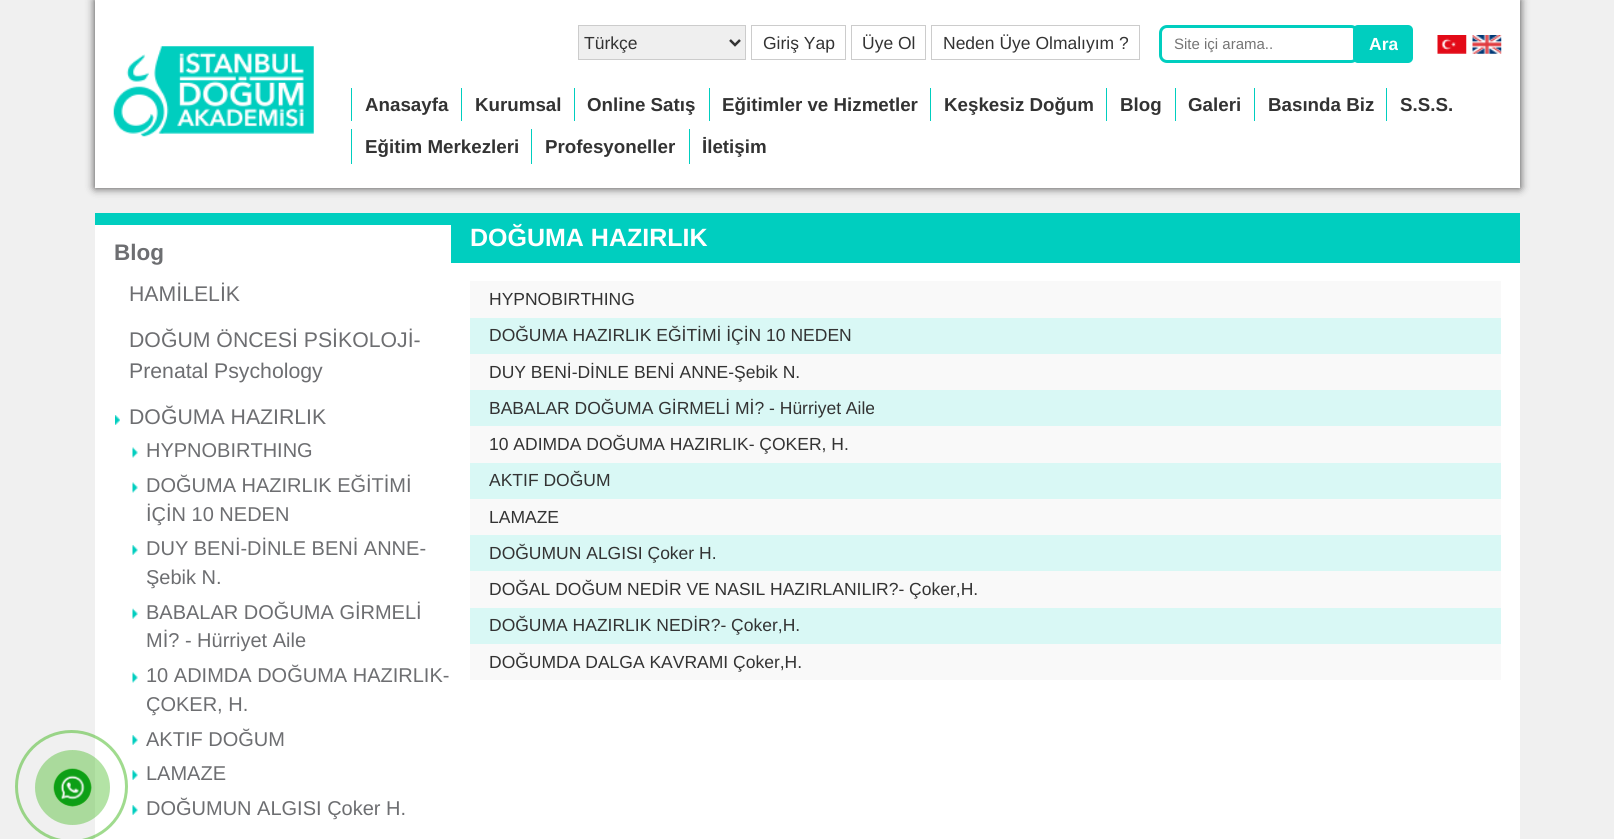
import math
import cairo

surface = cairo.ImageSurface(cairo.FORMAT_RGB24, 1614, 839)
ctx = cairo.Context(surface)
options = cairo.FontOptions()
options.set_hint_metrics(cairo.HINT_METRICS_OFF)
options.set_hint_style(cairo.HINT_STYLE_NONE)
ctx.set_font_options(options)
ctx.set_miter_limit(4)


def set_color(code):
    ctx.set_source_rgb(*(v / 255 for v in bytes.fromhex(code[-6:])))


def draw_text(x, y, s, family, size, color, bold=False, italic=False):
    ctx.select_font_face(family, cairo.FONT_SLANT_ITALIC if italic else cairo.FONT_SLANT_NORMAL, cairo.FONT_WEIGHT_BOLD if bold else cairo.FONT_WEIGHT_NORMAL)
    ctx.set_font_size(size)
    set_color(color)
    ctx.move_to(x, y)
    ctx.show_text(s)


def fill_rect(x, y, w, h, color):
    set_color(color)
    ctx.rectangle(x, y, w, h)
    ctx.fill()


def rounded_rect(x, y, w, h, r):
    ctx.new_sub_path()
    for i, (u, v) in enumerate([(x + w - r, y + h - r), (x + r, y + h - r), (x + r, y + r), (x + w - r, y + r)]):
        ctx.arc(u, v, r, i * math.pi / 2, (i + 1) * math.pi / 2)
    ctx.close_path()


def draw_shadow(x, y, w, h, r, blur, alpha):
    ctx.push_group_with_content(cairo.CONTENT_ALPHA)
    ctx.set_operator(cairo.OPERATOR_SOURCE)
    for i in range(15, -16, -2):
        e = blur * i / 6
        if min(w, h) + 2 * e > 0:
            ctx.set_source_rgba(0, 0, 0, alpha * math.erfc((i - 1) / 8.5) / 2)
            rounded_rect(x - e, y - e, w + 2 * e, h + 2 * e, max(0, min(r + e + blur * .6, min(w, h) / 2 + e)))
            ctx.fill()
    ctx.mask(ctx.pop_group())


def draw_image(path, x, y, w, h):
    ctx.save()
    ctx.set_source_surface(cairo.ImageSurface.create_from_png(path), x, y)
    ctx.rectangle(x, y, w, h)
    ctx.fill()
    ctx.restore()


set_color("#f0f0f0")
ctx.paint()
set_color("#424141")
draw_shadow(95, 0, 1425, 188, 0, 4.5, 1)
fill_rect(95, 0, 1425, 188, "#ffffff")
draw_image("assets/img1.png", 113, 46, 201, 91)
set_color("#efefef")
ctx.rectangle(578.5, 25.5, 167, 34)
ctx.fill_preserve()
set_color("#cccccc")
ctx.set_line_width(1)
ctx.stroke()
ctx.new_path()
ctx.move_to(730, 40)
ctx.line_to(735, 45)
ctx.line_to(740, 40)
set_color("#333333")
ctx.set_line_width(2.5)
ctx.stroke()
draw_text(584, 49, "Türkçe", "Liberation Sans", 17.5, "#333333")
ctx.rectangle(751.5, 25.5, 94, 34)
set_color("#cccccc")
ctx.set_line_width(1)
ctx.stroke()
draw_text(763, 49, "Giriş Yap", "Liberation Sans", 17.5, "#333333")
ctx.rectangle(851.5, 25.5, 74, 34)
set_color("#cccccc")
ctx.stroke()
draw_text(862, 49, "Üye Ol", "Liberation Sans", 17.5, "#333333")
ctx.rectangle(931.5, 25.5, 208, 34)
set_color("#cccccc")
ctx.stroke()
draw_text(943, 49, "Neden Üye Olmalıyım ?", "Liberation Sans", 17.5, "#333333")
rounded_rect(1160.5, 26.5, 197, 35, 6.5)
set_color("#00cebf")
ctx.set_line_width(3)
ctx.stroke()
draw_text(1174, 49, "Site içi arama..", "Liberation Sans", 15, "#757575")
set_color("#00cebf")
rounded_rect(1353, 25, 60, 38, 5)
ctx.fill()
draw_text(1369, 50, "Ara", "Liberation Sans", 17.5, "#ffffff", bold=True)
draw_image("assets/img2.png", 1437, 35, 30, 19)
draw_image("assets/img3.png", 1472, 35, 30, 19)
fill_rect(351, 88, 1, 33, "#00cebf")
draw_text(365, 111, "Anasayfa", "Liberation Sans", 18.75, "#333333", bold=True)
fill_rect(461, 88, 1, 33, "#00cebf")
draw_text(475, 111, "Kurumsal", "Liberation Sans", 18.75, "#333333", bold=True)
fill_rect(574, 88, 1, 33, "#00cebf")
draw_text(587, 111, "Online Satış", "Liberation Sans", 18.75, "#333333", bold=True)
fill_rect(709, 88, 1, 33, "#00cebf")
draw_text(722, 111, "Eğitimler ve Hizmetler", "Liberation Sans", 18.75, "#333333", bold=True)
fill_rect(930, 88, 1, 33, "#00cebf")
draw_text(944, 111, "Keşkesiz Doğum", "Liberation Sans", 18.75, "#333333", bold=True)
fill_rect(1106, 88, 1, 33, "#00cebf")
draw_text(1120, 111, "Blog", "Liberation Sans", 18.75, "#333333", bold=True)
fill_rect(1175, 88, 1, 33, "#00cebf")
draw_text(1188, 111, "Galeri", "Liberation Sans", 18.75, "#333333", bold=True)
fill_rect(1254, 88, 1, 33, "#00cebf")
draw_text(1268, 111, "Basında Biz", "Liberation Sans", 18.75, "#333333", bold=True)
fill_rect(1386, 88, 1, 33, "#00cebf")
draw_text(1400, 111, "S.S.S.", "Liberation Sans", 18.75, "#333333", bold=True)
fill_rect(351, 129, 1, 35, "#00cebf")
draw_text(365, 153, "Eğitim Merkezleri", "Liberation Sans", 18.75, "#333333", bold=True)
fill_rect(531, 129, 1, 35, "#00cebf")
draw_text(545, 153, "Profesyoneller", "Liberation Sans", 18.75, "#333333", bold=True)
fill_rect(689, 129, 1, 35, "#00cebf")
draw_text(702, 153, "İletişim", "Liberation Sans", 18.75, "#333333", bold=True)
fill_rect(95, 225, 1425, 614, "#ffffff")
ctx.new_path()
ctx.arc(71.5, 786.5, 55, 0, 2 * math.pi)
ctx.set_source_rgba(0.263, 0.725, 0.118, 0.5)
ctx.stroke()
ctx.set_source_rgba(0.263, 0.725, 0.118, 0.4)
ctx.arc(72.5, 787.5, 37.5, 0, 2 * math.pi)
ctx.fill()
set_color("#43b91e")
ctx.arc(72.5, 787.5, 18.5, 0, 2 * math.pi)
ctx.fill()
draw_image("assets/img4.png", 53, 768, 39, 39)
fill_rect(95, 213, 356, 12, "#00cebf")
draw_text(114, 260, "Blog", "Liberation Sans", 22.5, "#6d6e71", bold=True)
draw_text(129, 301, "HAMİLELİK", "Liberation Sans", 21.25, "#6d6e71")
draw_text(129, 347, "DOĞUM ÖNCESİ PSİKOLOJİ-", "Liberation Sans", 21.25, "#6d6e71")
draw_text(129, 378, "Prenatal Psychology", "Liberation Sans", 21.25, "#6d6e71")
draw_image("assets/img5.png", 115, 415, 5, 10)
draw_text(129, 424, "DOĞUMA HAZIRLIK", "Liberation Sans", 21.25, "#6d6e71")
draw_image("assets/img6.png", 132, 447, 6, 11)
draw_text(146, 457, "HYPNOBIRTHING", "Liberation Sans", 20, "#6d6e71")
draw_image("assets/img6.png", 132, 482, 6, 11)
draw_text(146, 492, "DOĞUMA HAZIRLIK EĞİTİMİ", "Liberation Sans", 20, "#6d6e71")
draw_text(146, 521, "İÇİN 10 NEDEN", "Liberation Sans", 20, "#6d6e71")
draw_image("assets/img7.png", 132, 545, 6, 10)
draw_text(146, 555, "DUY BENİ-DİNLE BENİ ANNE-", "Liberation Sans", 20, "#6d6e71")
draw_text(146, 584, "Şebik N.", "Liberation Sans", 20, "#6d6e71")
draw_image("assets/img8.png", 132, 608, 6, 11)
draw_text(146, 619, "BABALAR DOĞUMA GİRMELİ", "Liberation Sans", 20, "#6d6e71")
draw_text(146, 647, "Mİ? - Hürriyet Aile", "Liberation Sans", 20, "#6d6e71")
draw_image("assets/img6.png", 132, 672, 6, 11)
draw_text(146, 682, "10 ADIMDA DOĞUMA HAZIRLIK-", "Liberation Sans", 20, "#6d6e71")
draw_text(146, 711, "ÇOKER, H.", "Liberation Sans", 20, "#6d6e71")
draw_image("assets/img7.png", 132, 735, 6, 10)
draw_text(146, 746, "AKTIF DOĞUM", "Liberation Sans", 20, "#6d6e71")
draw_image("assets/img7.png", 132, 770, 6, 10)
draw_text(146, 780, "LAMAZE", "Liberation Sans", 20, "#6d6e71")
draw_image("assets/img7.png", 132, 805, 6, 10)
draw_text(146, 815, "DOĞUMUN ALGISI Çoker H.", "Liberation Sans", 20, "#6d6e71")
fill_rect(451, 213, 1069, 50, "#00cebf")
draw_text(470, 246, "DOĞUMA HAZIRLIK", "Liberation Sans", 25, "#ffffff", bold=True)
fill_rect(470, 281, 1031, 37, "#f9f9f9")
draw_text(489, 305, "HYPNOBIRTHING", "Liberation Sans", 17.5, "#333333")
fill_rect(470, 318, 1031, 36, "#d9f8f5")
draw_text(489, 341, "DOĞUMA HAZIRLIK EĞİTİMİ İÇİN 10 NEDEN", "Liberation Sans", 17.5, "#333333")
fill_rect(470, 354, 1031, 36, "#f9f9f9")
draw_text(489, 378, "DUY BENİ-DİNLE BENİ ANNE-Şebik N.", "Liberation Sans", 17.5, "#333333")
fill_rect(470, 390, 1031, 36, "#d9f8f5")
draw_text(489, 414, "BABALAR DOĞUMA GİRMELİ Mİ? - Hürriyet Aile", "Liberation Sans", 17.5, "#333333")
fill_rect(470, 426, 1031, 37, "#f9f9f9")
draw_text(489, 450, "10 ADIMDA DOĞUMA HAZIRLIK- ÇOKER, H.", "Liberation Sans", 17.5, "#333333")
fill_rect(470, 463, 1031, 36, "#d9f8f5")
draw_text(489, 486, "AKTIF DOĞUM", "Liberation Sans", 17.5, "#333333")
fill_rect(470, 499, 1031, 36, "#f9f9f9")
draw_text(489, 523, "LAMAZE", "Liberation Sans", 17.5, "#333333")
fill_rect(470, 535, 1031, 36, "#d9f8f5")
draw_text(489, 559, "DOĞUMUN ALGISI Çoker H.", "Liberation Sans", 17.5, "#333333")
fill_rect(470, 571, 1031, 37, "#f9f9f9")
draw_text(489, 595, "DOĞAL DOĞUM NEDİR VE NASIL HAZIRLANILIR?- Çoker,H.", "Liberation Sans", 17.5, "#333333")
fill_rect(470, 608, 1031, 36, "#d9f8f5")
draw_text(489, 631, "DOĞUMA HAZIRLIK NEDİR?- Çoker,H.", "Liberation Sans", 17.5, "#333333")
fill_rect(470, 644, 1031, 36, "#f9f9f9")
draw_text(489, 668, "DOĞUMDA DALGA KAVRAMI Çoker,H.", "Liberation Sans", 17.5, "#333333")
surface.write_to_png("output.png")
